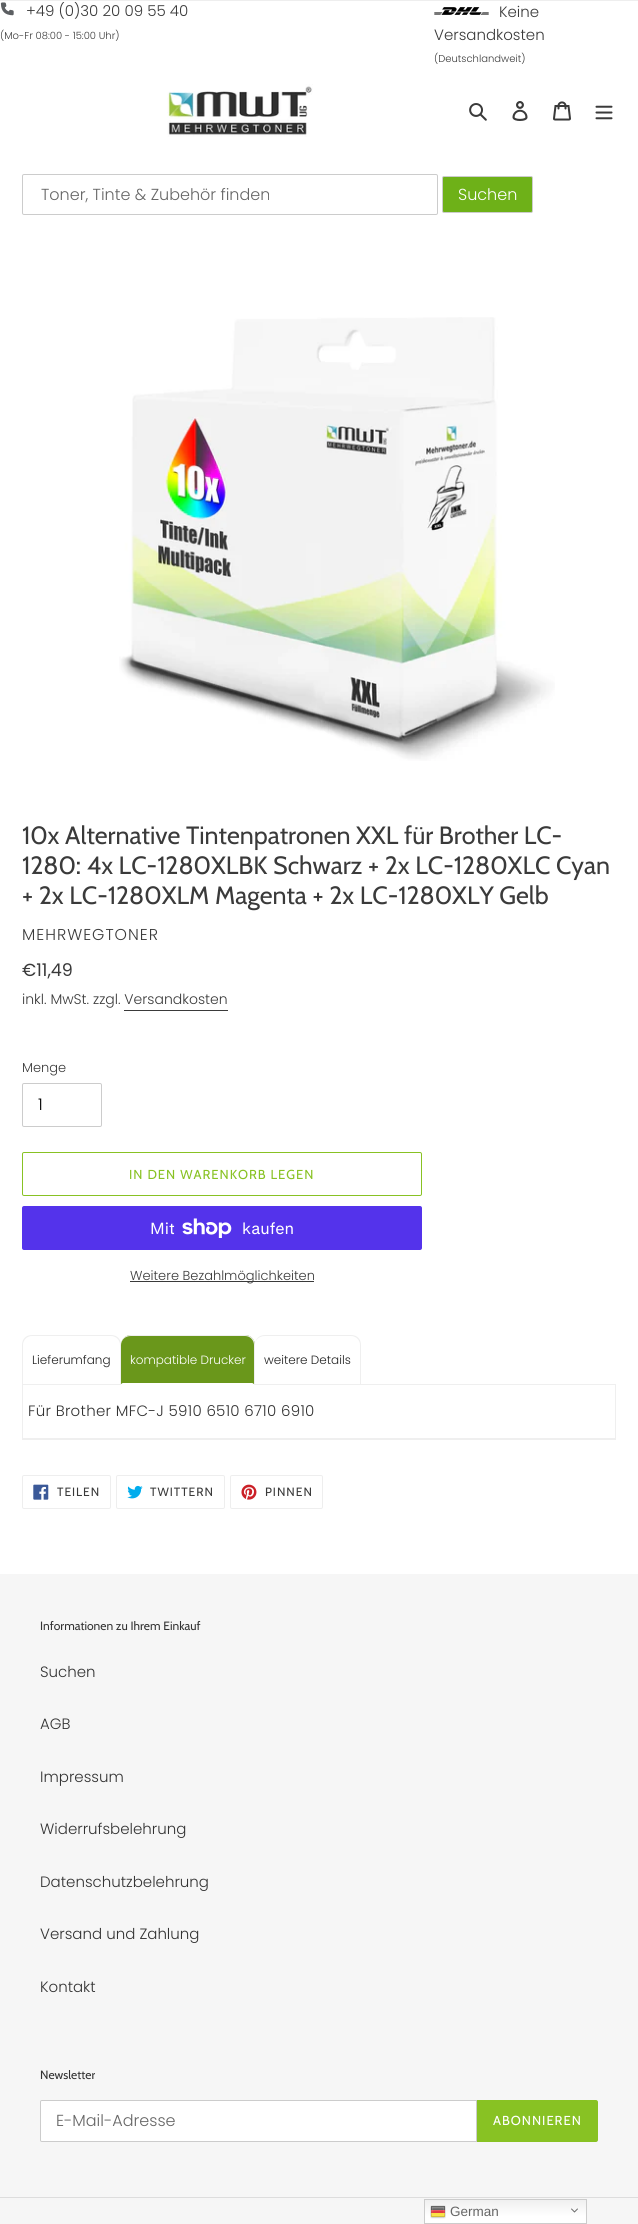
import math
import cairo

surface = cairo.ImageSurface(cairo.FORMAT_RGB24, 638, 2224)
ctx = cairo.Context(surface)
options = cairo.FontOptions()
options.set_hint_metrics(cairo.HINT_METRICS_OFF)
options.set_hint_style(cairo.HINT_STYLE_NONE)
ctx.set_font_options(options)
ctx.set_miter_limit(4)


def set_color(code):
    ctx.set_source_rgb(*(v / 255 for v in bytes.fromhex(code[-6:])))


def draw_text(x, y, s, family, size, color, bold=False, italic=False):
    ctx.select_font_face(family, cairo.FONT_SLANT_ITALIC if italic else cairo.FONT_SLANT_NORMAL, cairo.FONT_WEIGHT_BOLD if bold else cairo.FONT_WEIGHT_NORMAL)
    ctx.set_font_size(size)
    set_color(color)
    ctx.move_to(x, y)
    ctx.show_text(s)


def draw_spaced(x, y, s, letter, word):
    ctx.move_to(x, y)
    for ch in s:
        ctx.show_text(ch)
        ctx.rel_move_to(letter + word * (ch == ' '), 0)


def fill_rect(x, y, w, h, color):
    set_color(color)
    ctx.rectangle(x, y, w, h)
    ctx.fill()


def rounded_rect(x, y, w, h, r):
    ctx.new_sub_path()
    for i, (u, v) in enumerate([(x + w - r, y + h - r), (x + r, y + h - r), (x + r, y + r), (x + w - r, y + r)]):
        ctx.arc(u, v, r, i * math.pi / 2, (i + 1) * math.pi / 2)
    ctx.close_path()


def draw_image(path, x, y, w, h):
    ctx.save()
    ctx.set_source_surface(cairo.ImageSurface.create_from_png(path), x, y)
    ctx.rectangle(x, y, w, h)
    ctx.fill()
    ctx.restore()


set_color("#ffffff")
ctx.paint()
fill_rect(0, 0, 638, 1, "#eeeeee")
draw_image("assets/img1.png", 0, 2, 14, 14)
draw_text(26, 16, "+49 (0)30 20 09 55 40", "Poppins Light", 15, "#3a3a3a")
draw_text(0, 39, "(Mo-Fr 08:00 - 15:00 Uhr)", "Poppins Light", 10, "#3a3a3a")
draw_image("assets/img2.png", 434, 7, 55, 8)
draw_text(499, 17, "Keine", "Poppins Light", 15, "#3a3a3a")
draw_text(434, 40, "Versandkosten", "Poppins Light", 15, "#3a3a3a")
draw_text(434, 62, "(Deutschlandweit)", "Poppins Light", 10, "#3a3a3a")
draw_image("assets/img3.png", 167, 84, 146, 53)
draw_image("assets/img4.png", 469, 103, 18, 18)
draw_image("assets/img5.png", 512, 101, 16, 20)
draw_image("assets/img6.png", 553, 101, 18, 20)
draw_image("assets/img7.png", 595, 105, 18, 15)
rounded_rect(22.5, 174.5, 415, 40, 1.5)
set_color("#cccccc")
ctx.set_line_width(1)
ctx.stroke()
draw_text(41, 200, "Toner, Tinte & Zubehör finden", "Poppins Light", 16, "#666666")
set_color("#6eb118")
rounded_rect(442.5, 176.5, 90, 36, 1.5)
ctx.fill_preserve()
set_color("#cccccc")
ctx.stroke()
draw_text(458, 200, "Suchen", "Poppins Light", 16, "#ffffff")
draw_image("assets/img8.png", 119, 317, 436, 444)
draw_text(22, 844, "10x Alternative Tintenpatronen XXL für Brother LC-", "Cabin", 25, "#3a3a3a")
draw_text(22, 874, "1280: 4x LC-1280XLBK Schwarz + 2x LC-1280XLC Cyan", "Cabin", 25, "#3a3a3a")
draw_text(22, 904, "+ 2x LC-1280XLM Magenta + 2x LC-1280XLY Gelb", "Cabin", 25, "#3a3a3a")
ctx.select_font_face("Poppins Light")
ctx.set_font_size(15.75)
draw_spaced(22, 940, "MEHRWEGTONER", 1, 0)
draw_text(22, 976, "€11,49", "Poppins", 17.5, "#3a3a3a")
draw_text(22, 1004, "inkl. MwSt. zzgl. Versandkosten", "Poppins Light", 14, "#3a3a3a")
fill_rect(124, 1010, 104, 1, "#3a3a3a")
draw_text(22, 1072, "Menge", "Poppins Light", 13, "#3a3a3a")
rounded_rect(22.5, 1083.5, 79, 43, 1.5)
set_color("#cccccc")
ctx.stroke()
draw_text(38, 1110, "1", "Poppins Light", 16, "#000000")
rounded_rect(22.5, 1152.5, 399, 43, 1.5)
set_color("#88c223")
ctx.stroke()
ctx.select_font_face("Cabin")
ctx.set_font_size(13)
draw_spaced(129, 1179, "IN DEN WARENKORB LEGEN", 1, 0)
set_color("#5433eb")
rounded_rect(22, 1206, 400, 44, 2)
ctx.fill()
draw_text(150, 1234, "Mit", "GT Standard", 16, "#ffffff")
draw_image("assets/img9.png", 182, 1218, 50, 20)
draw_text(242, 1234, "kaufen", "GT Standard", 16, "#ffffff")
fill_rect(130, 1281, 184, 1, "#3a3a3a")
draw_text(130, 1280, "Weitere Bezahlmöglichkeiten", "Poppins Light", 13, "#3a3a3a")
set_color("#efefef")
ctx.set_fill_rule(cairo.FILL_RULE_EVEN_ODD)
ctx.new_path()
ctx.move_to(32, 1335)
ctx.line_to(111, 1335)
ctx.curve_to(117, 1335, 121, 1339, 121, 1345)
ctx.line_to(121, 1384)
ctx.line_to(22, 1384)
ctx.line_to(22, 1345)
ctx.curve_to(22, 1339, 26, 1335, 32, 1335)
ctx.close_path()
ctx.move_to(32, 1336)
ctx.line_to(111, 1336)
ctx.curve_to(116, 1336, 120, 1340, 120, 1345)
ctx.line_to(120, 1384)
ctx.line_to(23, 1384)
ctx.line_to(23, 1345)
ctx.curve_to(23, 1340, 27, 1336, 32, 1336)
ctx.close_path()
ctx.fill()
draw_text(32, 1364, "Lieferumfang", "Poppins Light", 12, "#222222")
set_color("#6a971b")
ctx.new_path()
ctx.move_to(131, 1335)
ctx.line_to(245, 1335)
ctx.curve_to(250.5, 1335, 255, 1339.5, 255, 1345)
ctx.line_to(255, 1384)
ctx.line_to(121, 1384)
ctx.line_to(121, 1345)
ctx.curve_to(121, 1339.5, 125.5, 1335, 131, 1335)
ctx.close_path()
ctx.fill()
set_color("#efefef")
ctx.new_path()
ctx.move_to(131, 1335)
ctx.line_to(245, 1335)
ctx.curve_to(251, 1335, 255, 1339, 255, 1345)
ctx.line_to(255, 1384)
ctx.line_to(121, 1384)
ctx.line_to(121, 1345)
ctx.curve_to(121, 1339, 125, 1335, 131, 1335)
ctx.close_path()
ctx.move_to(131, 1336)
ctx.line_to(245, 1336)
ctx.curve_to(250, 1336, 254, 1340, 254, 1345)
ctx.line_to(254, 1384)
ctx.line_to(121, 1384)
ctx.line_to(121, 1345)
ctx.curve_to(121, 1340, 125, 1336, 131, 1336)
ctx.close_path()
ctx.fill()
draw_text(130, 1364, "kompatible Drucker", "Poppins Light", 12, "#ffffff")
ctx.rectangle(22.5, 1384.5, 593, 54)
set_color("#efefef")
ctx.stroke()
set_color("#ffffff")
ctx.new_path()
ctx.move_to(123, 1383)
ctx.line_to(252, 1383)
ctx.curve_to(253, 1383, 254, 1384, 254, 1385)
ctx.line_to(121, 1385)
ctx.curve_to(121, 1384, 122, 1383, 123, 1383)
ctx.close_path()
ctx.fill()
set_color("#efefef")
ctx.new_path()
ctx.move_to(265, 1335)
ctx.line_to(351, 1335)
ctx.curve_to(357, 1335, 361, 1339, 361, 1345)
ctx.line_to(361, 1384)
ctx.line_to(255, 1384)
ctx.line_to(255, 1345)
ctx.curve_to(255, 1339, 259, 1335, 265, 1335)
ctx.close_path()
ctx.move_to(265, 1336)
ctx.line_to(351, 1336)
ctx.curve_to(356, 1336, 360, 1340, 360, 1345)
ctx.line_to(360, 1384)
ctx.line_to(255, 1384)
ctx.line_to(255, 1345)
ctx.curve_to(255, 1340, 259, 1336, 265, 1336)
ctx.close_path()
ctx.fill()
draw_text(264, 1364, "weitere Details", "Poppins Light", 12, "#222222")
fill_rect(22, 1439, 594, 1, "#efefef")
ctx.set_font_size(15)
set_color("#333333")
draw_spaced(28, 1416, "Für Brother MFC-J 5910 6510 6710 6910", 0.3, 0)
rounded_rect(22.5, 1475.5, 88, 33, 1.5)
set_color("#eeeeee")
ctx.stroke()
draw_image("assets/img10.png", 33, 1484, 16, 16)
ctx.select_font_face("Cabin")
ctx.set_font_size(12)
set_color("#3a3a3a")
draw_spaced(57, 1496, "TEILEN", 1, 0)
rounded_rect(116.5, 1475.5, 108, 33, 1.5)
set_color("#eeeeee")
ctx.stroke()
draw_image("assets/img11.png", 127, 1485, 16, 14)
set_color("#3a3a3a")
draw_spaced(150, 1496, "TWITTERN", 1, 0)
rounded_rect(230.5, 1475.5, 92, 33, 1.5)
set_color("#eeeeee")
ctx.stroke()
draw_image("assets/img12.png", 241, 1484, 16, 16)
set_color("#3a3a3a")
draw_spaced(265, 1496, "PINNEN", 1, 0)
fill_rect(0, 1574, 638, 650, "#f6f6f6")
draw_text(40, 1630, "Informationen zu Ihrem Einkauf", "Cabin", 12, "#333333")
draw_text(40, 1677, "Suchen", "Poppins Light", 15, "#333333")
draw_text(40, 1729, "AGB", "Poppins Light", 15, "#333333")
draw_text(40, 1782, "Impressum", "Poppins Light", 15, "#333333")
draw_text(40, 1834, "Widerrufsbelehrung", "Poppins Light", 15, "#333333")
draw_text(40, 1887, "Datenschutzbelehrung", "Poppins Light", 15, "#333333")
draw_text(40, 1939, "Versand und Zahlung", "Poppins Light", 15, "#333333")
draw_text(40, 1992, "Kontakt", "Poppins Light", 15, "#333333")
draw_text(40, 2079, "Newsletter", "Cabin", 12, "#333333")
set_color("#ffffff")
ctx.new_path()
ctx.move_to(42, 2100.5)
ctx.line_to(476.5, 2100.5)
ctx.line_to(476.5, 2141.5)
ctx.line_to(42, 2141.5)
ctx.curve_to(41, 2141.5, 40.5, 2141, 40.5, 2140)
ctx.line_to(40.5, 2102)
ctx.curve_to(40.5, 2101, 41, 2100.5, 42, 2100.5)
ctx.close_path()
ctx.fill_preserve()
set_color("#cccccc")
ctx.stroke()
draw_text(56, 2126, "E-Mail-Adresse", "Poppins Light", 16, "#666666")
set_color("#88c223")
ctx.new_path()
ctx.move_to(477, 2100)
ctx.line_to(596, 2100)
ctx.curve_to(597, 2100, 598, 2101, 598, 2102)
ctx.line_to(598, 2140)
ctx.curve_to(598, 2141, 597, 2142, 596, 2142)
ctx.line_to(477, 2142)
ctx.close_path()
ctx.fill()
ctx.select_font_face("Cabin")
ctx.set_font_size(13)
set_color("#ffffff")
draw_spaced(493, 2125, "ABONNIEREN", 1, 0)
fill_rect(0, 2197, 638, 1, "#dddddd")
gradient = cairo.LinearGradient(506, 2199, 506, 2224)
gradient.add_color_stop_rgba(0, 0.937, 0.937, 0.937, 1)
gradient.add_color_stop_rgba(0.7, 1, 1, 1, 1)
ctx.set_source(gradient)
ctx.rectangle(425, 2200, 161, 23)
ctx.fill()
ctx.rectangle(424.5, 2199.5, 162, 24)
set_color("#cccccc")
ctx.stroke()
draw_image("assets/img13.png", 430, 2205, 16, 14)
draw_text(450, 2216, "German", "Liberation Sans", 13.5, "#666666")
draw_image("assets/img14.png", 571, 2208, 7, 5)
surface.write_to_png("output.png")
